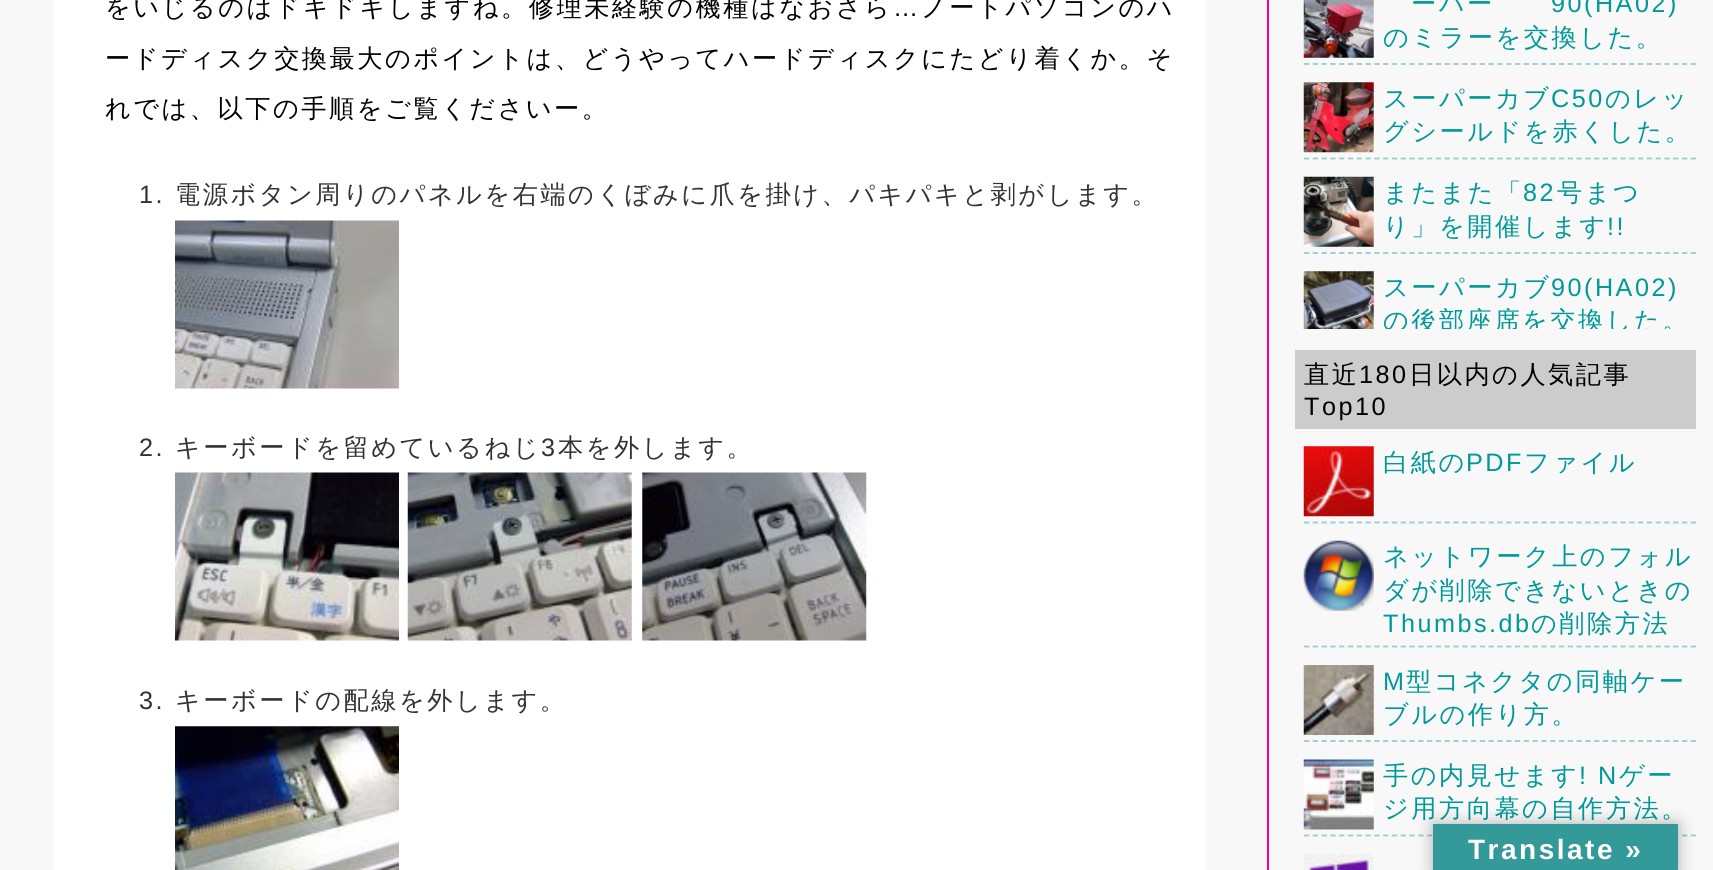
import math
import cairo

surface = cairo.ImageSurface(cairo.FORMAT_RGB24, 1713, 870)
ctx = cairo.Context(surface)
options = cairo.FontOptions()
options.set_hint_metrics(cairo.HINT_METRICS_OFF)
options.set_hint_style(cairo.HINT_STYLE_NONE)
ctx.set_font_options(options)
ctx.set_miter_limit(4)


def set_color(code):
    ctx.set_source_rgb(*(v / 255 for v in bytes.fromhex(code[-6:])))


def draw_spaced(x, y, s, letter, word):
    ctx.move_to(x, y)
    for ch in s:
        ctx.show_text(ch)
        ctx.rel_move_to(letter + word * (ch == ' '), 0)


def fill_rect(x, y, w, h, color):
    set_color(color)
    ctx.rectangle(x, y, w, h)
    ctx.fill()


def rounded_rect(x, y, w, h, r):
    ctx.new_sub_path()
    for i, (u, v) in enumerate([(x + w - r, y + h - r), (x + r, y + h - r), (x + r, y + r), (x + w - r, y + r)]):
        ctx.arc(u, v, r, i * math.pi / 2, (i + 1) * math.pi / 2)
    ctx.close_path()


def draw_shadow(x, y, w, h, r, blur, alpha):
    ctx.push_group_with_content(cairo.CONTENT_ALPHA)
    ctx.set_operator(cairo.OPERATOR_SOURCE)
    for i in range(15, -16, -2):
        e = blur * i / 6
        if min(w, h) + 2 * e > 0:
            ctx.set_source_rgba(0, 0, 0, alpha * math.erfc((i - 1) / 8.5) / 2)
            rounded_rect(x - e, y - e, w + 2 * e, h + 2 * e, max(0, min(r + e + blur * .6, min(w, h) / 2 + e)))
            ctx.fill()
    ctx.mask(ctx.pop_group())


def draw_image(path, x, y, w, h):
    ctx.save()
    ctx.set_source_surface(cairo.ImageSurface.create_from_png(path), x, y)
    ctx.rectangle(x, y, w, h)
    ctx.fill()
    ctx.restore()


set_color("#f8f8f8")
ctx.paint()
fill_rect(53, 0, 1153, 870, "#ffffff")
ctx.select_font_face("WenQuanYi Zen Hei Medium")
ctx.set_font_size(25.2)
set_color("#000000")
draw_spaced(105, 16, "をいじるのはドキドキしますね。修理未経験の機種はなおさら", 2.5, 0)
ctx.select_font_face("Liberation Sans")
draw_spaced(893, 16, "…", 2.5, 0)
ctx.select_font_face("WenQuanYi Zen Hei Medium")
draw_spaced(921, 16, "ノートパソコンのハ", 2.5, 0)
draw_spaced(105, 67, "ードディスク交換最大のポイントは、どうやってハードディスクにたどり着くか。そ", 2.5, 0)
draw_spaced(105, 117, "れでは、以下の手順をご覧くださいー。", 2.5, 0)
ctx.select_font_face("Liberation Sans")
set_color("#333333")
draw_spaced(139, 203, "1.", 2.5, 0)
ctx.select_font_face("WenQuanYi Zen Hei Medium")
draw_spaced(175, 203, "電源ボタン周りのパネルを右端のくぼみに爪を掛け、パキパキと剥がします。", 2.5, 0)
draw_image("assets/img1.png", 175, 220, 224, 169)
ctx.select_font_face("Liberation Sans")
draw_spaced(139, 456, "2.", 2.5, 0)
ctx.select_font_face("WenQuanYi Zen Hei Medium")
draw_spaced(175, 456, "キーボードを留めているねじ", 2.5, 0)
ctx.select_font_face("Liberation Sans")
draw_spaced(541, 456, "3", 2.5, 0)
ctx.select_font_face("WenQuanYi Zen Hei Medium")
draw_spaced(558, 456, "本を外します。", 2.5, 0)
draw_image("assets/img2.png", 175, 472, 224, 169)
draw_image("assets/img3.png", 407, 472, 225, 169)
draw_image("assets/img4.png", 642, 472, 225, 169)
ctx.select_font_face("Liberation Sans")
draw_spaced(139, 709, "3.", 2.5, 0)
ctx.select_font_face("WenQuanYi Zen Hei Medium")
draw_spaced(175, 709, "キーボードの配線を外します。", 2.5, 0)
draw_image("assets/img5.png", 175, 726, 224, 144)
fill_rect(1267, 0, 2, 870, "#ff0099")
ctx.new_path()
ctx.move_to(1304, 64)
ctx.line_to(1696, 64)
set_color("#99cccc")
ctx.set_line_width(1.8)
ctx.set_dash([5.25, 3.54])
ctx.stroke()
draw_image("assets/img6.png", 1303, 0, 71, 58)
set_color("#009999")
draw_spaced(1411, 12, "ーパー", 2.5, 0)
ctx.select_font_face("Liberation Sans")
draw_spaced(1551, 12, "90(HA02)", 2.5, 0)
ctx.select_font_face("WenQuanYi Zen Hei Medium")
draw_spaced(1383, 46, "のミラーを交換した。", 2.5, 0)
ctx.new_path()
ctx.move_to(1304, 158.5)
ctx.line_to(1696, 158.5)
set_color("#99cccc")
ctx.stroke()
draw_image("assets/img7.png", 1303, 82, 71, 71)
set_color("#009999")
draw_spaced(1383, 107, "スーパーカブ", 2.5, 0)
ctx.select_font_face("Liberation Sans")
draw_spaced(1551, 107, "C50", 2.5, 0)
ctx.select_font_face("WenQuanYi Zen Hei Medium")
draw_spaced(1605, 107, "のレッ", 2.5, 0)
draw_spaced(1383, 140, "グシールドを赤くした。", 2.5, 0)
ctx.new_path()
ctx.move_to(1304, 253)
ctx.line_to(1696, 253)
set_color("#99cccc")
ctx.stroke()
draw_image("assets/img8.png", 1303, 176, 71, 71)
set_color("#009999")
draw_spaced(1383, 201, "またまた「", 2.5, 0)
ctx.select_font_face("Liberation Sans")
draw_spaced(1523, 201, "82", 2.5, 0)
ctx.select_font_face("WenQuanYi Zen Hei Medium")
draw_spaced(1557, 201, "号まつ", 2.5, 0)
draw_spaced(1383, 235, "り」を開催します", 2.5, 0)
ctx.select_font_face("Liberation Sans")
draw_spaced(1607, 235, "!!", 2.5, 0)
draw_image("assets/img9.png", 1303, 271, 71, 58)
ctx.select_font_face("WenQuanYi Zen Hei Medium")
draw_spaced(1383, 296, "スーパーカブ", 2.5, 0)
ctx.select_font_face("Liberation Sans")
draw_spaced(1551, 296, "90(HA02)", 2.5, 0)
ctx.save()
ctx.rectangle(1295, 0, 401, 329)
ctx.clip()
ctx.select_font_face("WenQuanYi Zen Hei Medium")
draw_spaced(1383, 329, "の後部座席を交換した。", 2.5, 0)
ctx.restore()
fill_rect(1295, 350, 401, 79, "#cccccc")
ctx.select_font_face("WenQuanYi Zen Hei Medium")
set_color("#000000")
draw_spaced(1304, 383, "直近", 2.5, 0)
ctx.select_font_face("Liberation Sans")
draw_spaced(1359, 383, "180", 2.5, 0)
ctx.select_font_face("WenQuanYi Zen Hei Medium")
draw_spaced(1409, 383, "日以内の人気記事", 2.5, 0)
ctx.select_font_face("Liberation Sans")
draw_spaced(1304, 415, "Top10", 2.5, 0)
ctx.new_path()
ctx.move_to(1304, 522.5)
ctx.line_to(1696, 522.5)
set_color("#99cccc")
ctx.stroke()
draw_image("assets/img10.png", 1303, 446, 71, 71)
ctx.select_font_face("WenQuanYi Zen Hei Medium")
set_color("#009999")
draw_spaced(1383, 471, "白紙の", 2.5, 0)
ctx.select_font_face("Liberation Sans")
draw_spaced(1466, 471, "PDF", 2.5, 0)
ctx.select_font_face("WenQuanYi Zen Hei Medium")
draw_spaced(1524, 471, "ファイル", 2.5, 0)
ctx.new_path()
ctx.move_to(1304, 646.5)
ctx.line_to(1696, 646.5)
set_color("#99cccc")
ctx.stroke()
draw_image("assets/img11.png", 1303, 540, 71, 71)
set_color("#009999")
draw_spaced(1383, 565, "ネットワーク上のフォル", 2.5, 0)
draw_spaced(1383, 599, "ダが削除できないときの", 2.5, 0)
ctx.select_font_face("Liberation Sans")
draw_spaced(1383, 632, "Thumbs.db", 2.5, 0)
ctx.select_font_face("WenQuanYi Zen Hei Medium")
draw_spaced(1531, 632, "の削除方法", 2.5, 0)
ctx.new_path()
ctx.move_to(1304, 741)
ctx.line_to(1696, 741)
set_color("#99cccc")
ctx.stroke()
draw_image("assets/img12.png", 1303, 665, 71, 70)
ctx.select_font_face("Liberation Sans")
set_color("#009999")
draw_spaced(1383, 690, "M", 2.5, 0)
ctx.select_font_face("WenQuanYi Zen Hei Medium")
draw_spaced(1406, 690, "型コネクタの同軸ケー", 2.5, 0)
draw_spaced(1383, 723, "ブルの作り方。", 2.5, 0)
ctx.new_path()
ctx.move_to(1304, 835.5)
ctx.line_to(1696, 835.5)
set_color("#99cccc")
ctx.stroke()
draw_image("assets/img13.png", 1303, 759, 71, 71)
set_color("#009999")
draw_spaced(1383, 784, "手の内見せます", 2.5, 0)
ctx.select_font_face("Liberation Sans")
draw_spaced(1579, 784, "! N", 2.5, 0)
ctx.select_font_face("WenQuanYi Zen Hei Medium")
draw_spaced(1619, 784, "ゲー", 2.5, 0)
draw_spaced(1383, 817, "ジ用方向幕の自作方法。", 2.5, 0)
draw_image("assets/img14.png", 1304, 854, 70, 16)
set_color("#000000")
draw_shadow(1433, 824, 245, 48, 0, 8, 0.3)
fill_rect(1433, 824, 245, 46, "#339999")
ctx.select_font_face("Liberation Sans", cairo.FONT_SLANT_NORMAL, cairo.FONT_WEIGHT_BOLD)
ctx.set_font_size(28)
set_color("#ffffff")
draw_spaced(1468, 859, "Translate »", 2.5, 0)
surface.write_to_png("output.png")
